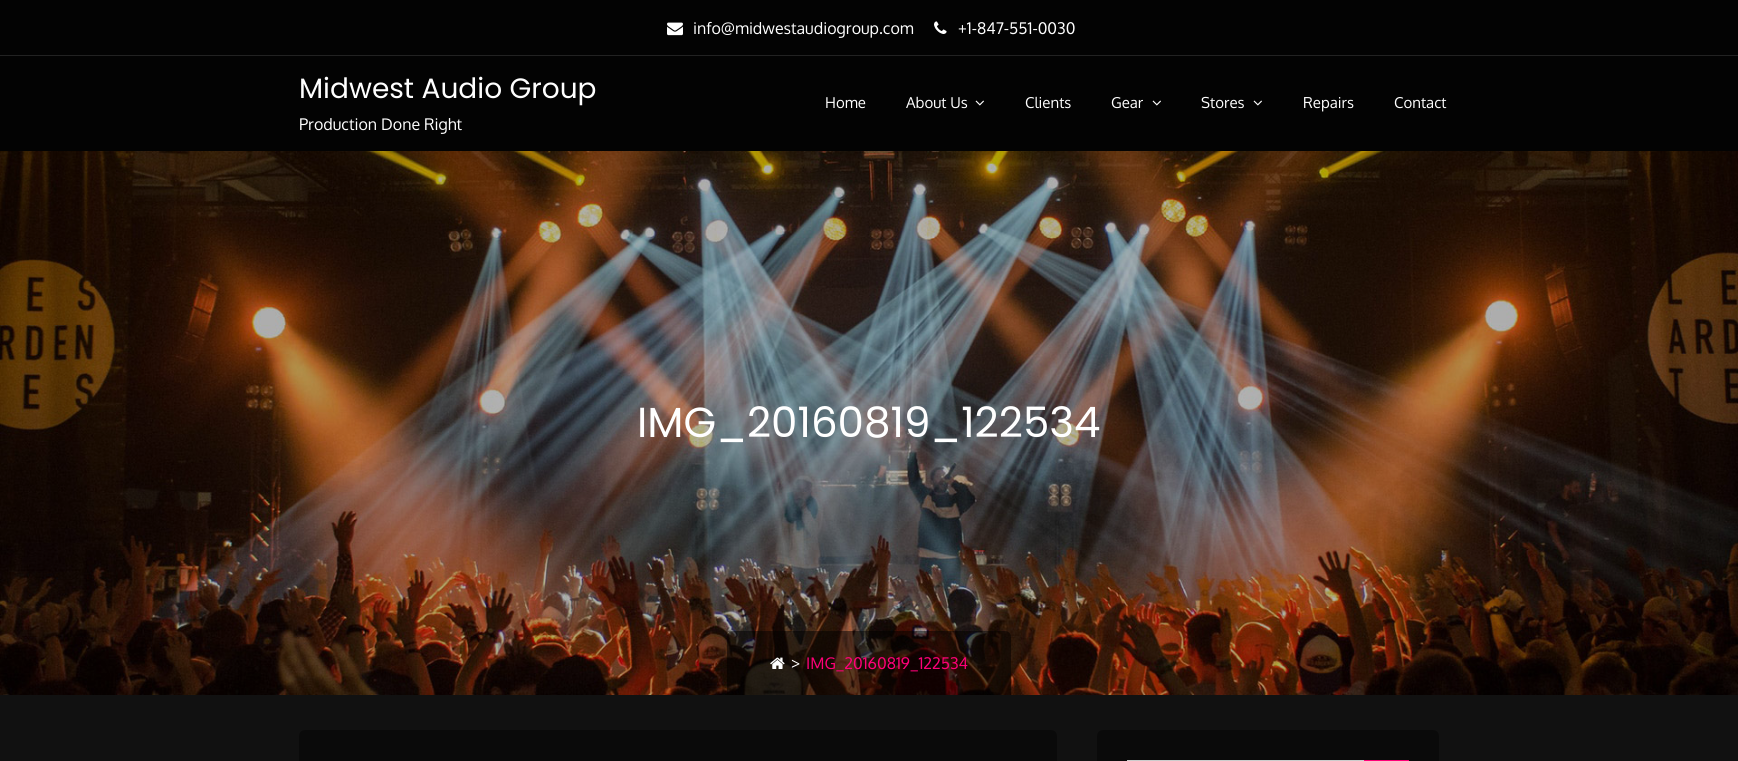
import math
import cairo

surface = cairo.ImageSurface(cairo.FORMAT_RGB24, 1738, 761)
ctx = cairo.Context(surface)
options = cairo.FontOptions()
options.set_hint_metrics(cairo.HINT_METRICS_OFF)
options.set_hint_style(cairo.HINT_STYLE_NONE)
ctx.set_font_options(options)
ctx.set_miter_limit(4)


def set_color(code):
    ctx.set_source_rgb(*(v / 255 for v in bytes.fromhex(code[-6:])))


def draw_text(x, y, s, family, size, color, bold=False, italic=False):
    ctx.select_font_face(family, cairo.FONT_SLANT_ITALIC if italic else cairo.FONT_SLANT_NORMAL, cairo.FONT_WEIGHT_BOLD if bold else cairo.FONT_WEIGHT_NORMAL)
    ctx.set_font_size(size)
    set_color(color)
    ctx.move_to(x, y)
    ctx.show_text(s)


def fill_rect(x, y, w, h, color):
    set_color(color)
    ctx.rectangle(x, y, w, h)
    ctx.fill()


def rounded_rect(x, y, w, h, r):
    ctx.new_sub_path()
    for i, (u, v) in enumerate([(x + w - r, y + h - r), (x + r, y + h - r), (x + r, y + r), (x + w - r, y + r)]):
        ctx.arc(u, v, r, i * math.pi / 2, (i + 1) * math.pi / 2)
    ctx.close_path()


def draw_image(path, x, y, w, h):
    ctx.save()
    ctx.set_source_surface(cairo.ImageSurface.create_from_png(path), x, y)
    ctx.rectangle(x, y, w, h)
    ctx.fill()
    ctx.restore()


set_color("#111111")
ctx.paint()
fill_rect(0, 0, 1738, 55, "#030303")
fill_rect(0, 55, 1738, 1, "#222222")
draw_image("assets/img1.png", 667, 22, 16, 14)
draw_text(693, 34, "info@midwestaudiogroup.com", "Oxygen", 16, "#ffffff")
draw_image("assets/img2.png", 934, 21, 13, 13)
draw_text(958, 34, "+1-847-551-0030", "Oxygen", 16, "#ffffff")
fill_rect(0, 56, 1738, 95, "#030303")
draw_text(299, 98, "Midwest Audio Group", "Poppins", 28, "#ffffff")
draw_text(299, 130, "Production Done Right", "Oxygen", 16, "#ffffff")
draw_text(825, 108, "Home", "Oxygen", 15, "#ffffff")
draw_text(906, 108, "About Us", "Oxygen", 15, "#ffffff")
draw_image("assets/img3.png", 975, 100, 9, 6)
draw_text(1025, 108, "Clients", "Oxygen", 15, "#ffffff")
draw_text(1111, 108, "Gear", "Oxygen", 15, "#ffffff")
draw_image("assets/img3.png", 1152, 100, 9, 6)
draw_text(1201, 108, "Stores", "Oxygen", 15, "#ffffff")
draw_image("assets/img3.png", 1253, 100, 9, 6)
draw_text(1303, 108, "Repairs", "Oxygen", 15, "#ffffff")
draw_text(1394, 108, "Contact", "Oxygen", 15, "#ffffff")
draw_image("assets/img4.png", 0, 151, 1738, 544)
draw_text(637, 437, "IMG_20160819_122534", "Poppins", 42, "#ffffff")
ctx.set_source_rgba(0, 0, 0, 0.5)
ctx.new_path()
ctx.move_to(733, 631)
ctx.line_to(1005, 631)
ctx.curve_to(1008.5, 631, 1011, 633.5, 1011, 637)
ctx.line_to(1011, 695)
ctx.line_to(727, 695)
ctx.line_to(727, 637)
ctx.curve_to(727, 633.5, 729.5, 631, 733, 631)
ctx.close_path()
ctx.fill()
draw_image("assets/img5.png", 770, 657, 15, 12)
draw_text(791, 669, ">", "Oxygen", 16, "#ffffff")
draw_text(806, 669, "IMG_20160819_122534", "Oxygen", 16, "#ff0078")
set_color("#0a0a0a")
rounded_rect(299, 730, 758, 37, 6)
ctx.fill()
rounded_rect(1097, 730, 342, 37, 6)
ctx.fill()
ctx.rectangle(1127.5, 760.5, 281, 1)
set_color("#cccccc")
ctx.set_line_width(1)
ctx.stroke()
fill_rect(1364, 760, 45, 1, "#ff0078")
surface.write_to_png("output.png")
